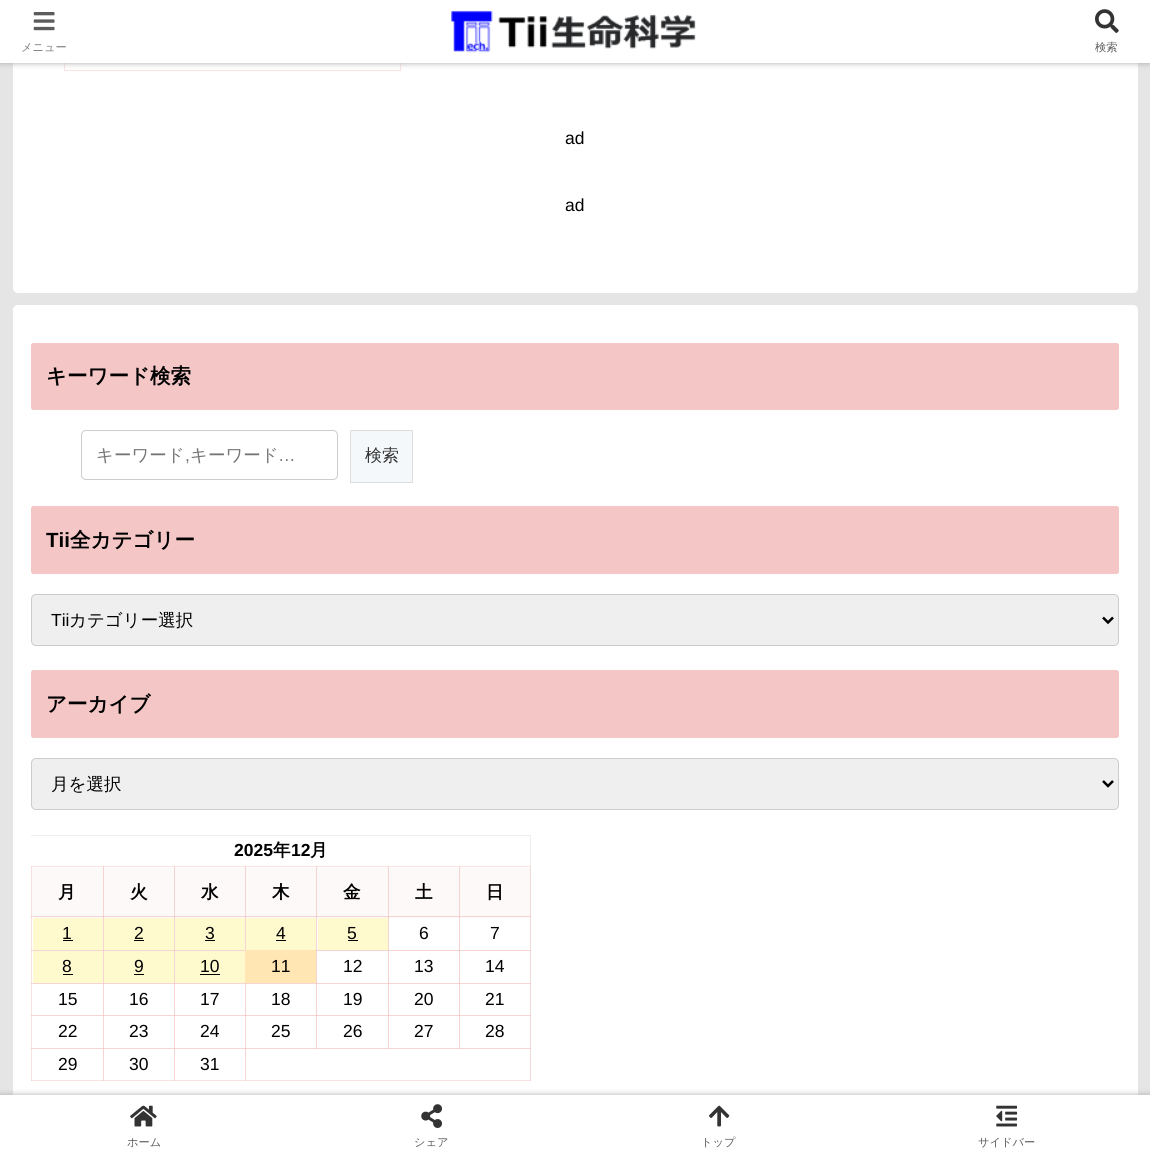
import math
import cairo

surface = cairo.ImageSurface(cairo.FORMAT_RGB24, 1150, 1157)
ctx = cairo.Context(surface)
options = cairo.FontOptions()
options.set_hint_metrics(cairo.HINT_METRICS_OFF)
options.set_hint_style(cairo.HINT_STYLE_NONE)
ctx.set_font_options(options)
ctx.set_miter_limit(4)


def set_color(code):
    ctx.set_source_rgb(*(v / 255 for v in bytes.fromhex(code[-6:])))


def draw_text(x, y, s, family, size, color, bold=False, italic=False):
    ctx.select_font_face(family, cairo.FONT_SLANT_ITALIC if italic else cairo.FONT_SLANT_NORMAL, cairo.FONT_WEIGHT_BOLD if bold else cairo.FONT_WEIGHT_NORMAL)
    ctx.set_font_size(size)
    set_color(color)
    ctx.move_to(x, y)
    ctx.show_text(s)


def fill_rect(x, y, w, h, color):
    set_color(color)
    ctx.rectangle(x, y, w, h)
    ctx.fill()


def rounded_rect(x, y, w, h, r):
    ctx.new_sub_path()
    for i, (u, v) in enumerate([(x + w - r, y + h - r), (x + r, y + h - r), (x + r, y + r), (x + w - r, y + r)]):
        ctx.arc(u, v, r, i * math.pi / 2, (i + 1) * math.pi / 2)
    ctx.close_path()


def draw_shadow(x, y, w, h, r, blur, alpha):
    ctx.push_group_with_content(cairo.CONTENT_ALPHA)
    ctx.set_operator(cairo.OPERATOR_SOURCE)
    for i in range(15, -16, -2):
        e = blur * i / 6
        if min(w, h) + 2 * e > 0:
            ctx.set_source_rgba(0, 0, 0, alpha * math.erfc((i - 1) / 8.5) / 2)
            rounded_rect(x - e, y - e, w + 2 * e, h + 2 * e, max(0, min(r + e + blur * .6, min(w, h) / 2 + e)))
            ctx.fill()
    ctx.mask(ctx.pop_group())


def draw_image(path, x, y, w, h):
    ctx.save()
    ctx.set_source_surface(cairo.ImageSurface.create_from_png(path), x, y)
    ctx.rectangle(x, y, w, h)
    ctx.fill()
    ctx.restore()


set_color("#e5e5e5")
ctx.paint()
set_color("#ffffff")
rounded_rect(13, -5, 1125, 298, 5)
ctx.fill()
ctx.rectangle(64.5, -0.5, 336, 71)
set_color("#fae3e3")
ctx.set_line_width(1)
ctx.stroke()
set_color("#a9a9a9")
draw_shadow(0, 0, 1150, 63, 0, 3, 1)
fill_rect(0, 0, 1150, 63, "#ffffff")
draw_image("assets/img1.png", 33, 12, 22, 19)
draw_text(21, 51, "メニュー", "WenQuanYi Zen Hei Medium", 11.25, "#7c7c7c")
draw_image("assets/img2.png", 451, 10, 245, 43)
draw_image("assets/img3.png", 1095, 9, 24, 24)
draw_text(1095, 51, "検索", "WenQuanYi Zen Hei Medium", 11.25, "#5c5c5c")
draw_text(565, 144, "ad", "Liberation Sans", 17.5, "#000000")
draw_text(565, 211, "ad", "Liberation Sans", 17.5, "#000000")
set_color("#ffffff")
rounded_rect(13, 305, 1125, 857, 5)
ctx.fill()
fill_rect(460, 868, 70, 50, "#fef9f9")
fill_rect(389, 868, 70, 50, "#fef9f9")
fill_rect(317, 868, 71, 50, "#fef9f9")
fill_rect(246, 868, 70, 50, "#fef9f9")
fill_rect(175, 868, 70, 50, "#fef9f9")
fill_rect(104, 868, 70, 50, "#fef9f9")
fill_rect(32, 868, 71, 50, "#fef9f9")
fill_rect(31, 866, 1, 2, "#fae3e3")
fill_rect(31, 868, 1, 50, "#f9e0e0")
fill_rect(31, 866, 73, 1, "#fae3e3")
fill_rect(31, 866, 1, 1, "#f7d5d5")
fill_rect(103, 866, 1, 2, "#f7d5d5")
fill_rect(103, 868, 1, 50, "#f7d4d4")
fill_rect(103, 866, 72, 1, "#fae3e3")
fill_rect(103, 866, 1, 1, "#f5caca")
fill_rect(174, 866, 1, 2, "#f7d5d5")
fill_rect(174, 868, 1, 50, "#f7d4d4")
fill_rect(174, 866, 72, 1, "#fae3e3")
fill_rect(174, 866, 1, 1, "#f5caca")
fill_rect(245, 866, 1, 2, "#f7d5d5")
fill_rect(245, 868, 1, 50, "#f7d4d4")
fill_rect(245, 866, 73, 1, "#fae3e3")
fill_rect(245, 866, 1, 1, "#f5caca")
fill_rect(316, 866, 1, 2, "#f7d5d5")
fill_rect(316, 868, 1, 50, "#f7d4d4")
fill_rect(316, 866, 73, 1, "#fae3e3")
fill_rect(316, 866, 2, 1, "#f7d5d5")
fill_rect(316, 866, 1, 1, "#f5caca")
fill_rect(388, 866, 1, 2, "#f7d5d5")
fill_rect(388, 868, 1, 50, "#f7d4d4")
fill_rect(388, 866, 72, 1, "#fae3e3")
fill_rect(388, 866, 1, 1, "#f5caca")
fill_rect(459, 866, 1, 2, "#f7d5d5")
fill_rect(459, 868, 1, 50, "#f7d4d4")
fill_rect(459, 866, 72, 1, "#fae3e3")
fill_rect(459, 866, 1, 1, "#f5caca")
fill_rect(31, 916, 1, 165, "#fae3e3")
fill_rect(31, 916, 1, 2, "#f7d4d4")
fill_rect(31, 916, 72, 1, "#f7d4d4")
fill_rect(31, 916, 1, 1, "#f5caca")
fill_rect(103, 916, 1, 35, "#f7d5d5")
fill_rect(103, 916, 1, 2, "#f5caca")
fill_rect(103, 916, 71, 1, "#f7d4d4")
fill_rect(103, 916, 1, 1, "#f5c7c7")
fill_rect(174, 916, 1, 35, "#f7d5d5")
fill_rect(174, 916, 1, 2, "#f5caca")
fill_rect(174, 916, 71, 1, "#f7d4d4")
fill_rect(174, 916, 1, 1, "#f5c7c7")
fill_rect(245, 916, 1, 35, "#f7d5d5")
fill_rect(245, 916, 1, 2, "#f5caca")
fill_rect(245, 916, 71, 1, "#f7d4d4")
fill_rect(245, 916, 1, 1, "#f5c7c7")
fill_rect(316, 916, 1, 68, "#f7d5d5")
fill_rect(316, 916, 1, 2, "#f5caca")
fill_rect(316, 916, 72, 1, "#f7d4d4")
fill_rect(316, 916, 2, 1, "#f5caca")
fill_rect(316, 916, 1, 1, "#f5c7c7")
fill_rect(388, 916, 1, 35, "#f7d5d5")
fill_rect(388, 916, 1, 2, "#f5caca")
fill_rect(388, 916, 71, 1, "#f7d4d4")
fill_rect(388, 916, 1, 1, "#f5c7c7")
fill_rect(459, 916, 1, 35, "#f7d5d5")
fill_rect(459, 916, 1, 2, "#f5caca")
fill_rect(459, 916, 71, 1, "#f7d4d4")
fill_rect(459, 916, 1, 1, "#f5c7c7")
fill_rect(31, 950, 73, 1, "#f7d5d5")
fill_rect(31, 950, 1, 1, "#f5caca")
fill_rect(103, 950, 1, 34, "#f7d5d5")
fill_rect(103, 950, 72, 1, "#f7d5d5")
fill_rect(103, 950, 1, 1, "#f5c7c7")
fill_rect(174, 950, 1, 34, "#f7d5d5")
fill_rect(174, 950, 72, 1, "#f7d5d5")
fill_rect(174, 950, 1, 1, "#f5c7c7")
fill_rect(316, 950, 73, 1, "#f7d5d5")
fill_rect(316, 950, 2, 1, "#f5caca")
fill_rect(316, 950, 1, 1, "#f5c7c7")
fill_rect(388, 950, 1, 34, "#f7d5d5")
fill_rect(388, 950, 72, 1, "#f7d5d5")
fill_rect(388, 950, 1, 1, "#f5c7c7")
fill_rect(459, 950, 1, 34, "#f7d5d5")
fill_rect(459, 950, 72, 1, "#f7d5d5")
fill_rect(459, 950, 1, 1, "#f5c7c7")
fill_rect(31, 983, 73, 1, "#f7d5d5")
fill_rect(31, 983, 1, 1, "#f5caca")
fill_rect(103, 983, 1, 33, "#f7d5d5")
fill_rect(103, 983, 72, 1, "#f7d5d5")
fill_rect(103, 983, 1, 1, "#f5c7c7")
fill_rect(174, 983, 1, 33, "#f7d5d5")
fill_rect(174, 983, 72, 1, "#f7d5d5")
fill_rect(174, 983, 1, 1, "#f5c7c7")
fill_rect(245, 983, 1, 33, "#f7d5d5")
fill_rect(245, 983, 73, 1, "#f7d5d5")
fill_rect(245, 983, 1, 1, "#f5c7c7")
fill_rect(316, 983, 1, 33, "#f7d5d5")
fill_rect(316, 983, 73, 1, "#f7d5d5")
fill_rect(316, 983, 2, 1, "#f5caca")
fill_rect(316, 983, 1, 1, "#f5c7c7")
fill_rect(388, 983, 1, 33, "#f7d5d5")
fill_rect(388, 983, 72, 1, "#f7d5d5")
fill_rect(388, 983, 1, 1, "#f5c7c7")
fill_rect(459, 983, 1, 33, "#f7d5d5")
fill_rect(459, 983, 72, 1, "#f7d5d5")
fill_rect(459, 983, 1, 1, "#f5c7c7")
fill_rect(31, 1015, 73, 1, "#f7d5d5")
fill_rect(31, 1015, 1, 1, "#f5caca")
fill_rect(103, 1015, 1, 34, "#f7d5d5")
fill_rect(103, 1015, 72, 1, "#f7d5d5")
fill_rect(103, 1015, 1, 1, "#f5c7c7")
fill_rect(174, 1015, 1, 34, "#f7d5d5")
fill_rect(174, 1015, 72, 1, "#f7d5d5")
fill_rect(174, 1015, 1, 1, "#f5c7c7")
fill_rect(245, 1015, 1, 34, "#f7d5d5")
fill_rect(245, 1015, 73, 1, "#f7d5d5")
fill_rect(245, 1015, 1, 1, "#f5c7c7")
fill_rect(316, 1015, 1, 34, "#f7d5d5")
fill_rect(316, 1015, 73, 1, "#f7d5d5")
fill_rect(316, 1015, 2, 1, "#f5caca")
fill_rect(316, 1015, 1, 1, "#f5c7c7")
fill_rect(388, 1015, 1, 34, "#f7d5d5")
fill_rect(388, 1015, 72, 1, "#f7d5d5")
fill_rect(388, 1015, 1, 1, "#f5c7c7")
fill_rect(459, 1015, 1, 34, "#f7d5d5")
fill_rect(459, 1015, 72, 1, "#f7d5d5")
fill_rect(459, 1015, 1, 1, "#f5c7c7")
fill_rect(31, 1080, 73, 1, "#fae3e3")
fill_rect(31, 1080, 1, 1, "#f7d5d5")
fill_rect(31, 1048, 73, 1, "#f7d5d5")
fill_rect(31, 1048, 1, 1, "#f5caca")
fill_rect(103, 1048, 1, 33, "#f7d5d5")
fill_rect(103, 1080, 72, 1, "#fae3e3")
fill_rect(103, 1080, 1, 1, "#f5caca")
fill_rect(103, 1048, 72, 1, "#f7d5d5")
fill_rect(103, 1048, 1, 1, "#f5c7c7")
fill_rect(174, 1048, 1, 33, "#f7d5d5")
fill_rect(174, 1080, 72, 1, "#fae3e3")
fill_rect(174, 1080, 1, 1, "#f5caca")
fill_rect(174, 1048, 72, 1, "#f7d5d5")
fill_rect(174, 1048, 1, 1, "#f5c7c7")
fill_rect(245, 1048, 1, 33, "#f7d5d5")
fill_rect(245, 1080, 286, 1, "#fae3e3")
fill_rect(245, 1080, 1, 1, "#f5caca")
fill_rect(245, 1048, 286, 1, "#f7d5d5")
fill_rect(316, 1048, 2, 1, "#f6cece")
fill_rect(316, 1048, 1, 1, "#f5c8c8")
fill_rect(388, 1048, 1, 1, "#f5c8c8")
fill_rect(459, 1048, 1, 1, "#f5c8c8")
fill_rect(245, 1048, 1, 1, "#f5c7c7")
set_color("#f4c6c6")
rounded_rect(31, 343, 1088, 67, 2.5)
ctx.fill()
draw_text(46, 383, "キーワード検索", "WenQuanYi Zen Hei", 20.5, "#000000", bold=True)
rounded_rect(81.5, 430.5, 256, 49, 4.5)
set_color("#cccccc")
ctx.stroke()
draw_text(96, 461, "キーワード", "WenQuanYi Zen Hei Medium", 17.5, "#757575")
draw_text(185, 461, ",", "Liberation Sans", 17.5, "#757575")
draw_text(190, 461, "キーワード", "WenQuanYi Zen Hei Medium", 17.5, "#757575")
draw_text(278, 461, "…", "Liberation Sans", 17.5, "#757575")
set_color("#f5f8fa")
ctx.rectangle(350.5, 430.5, 62, 52)
ctx.fill_preserve()
set_color("#dddddd")
ctx.stroke()
draw_text(365, 461, "検索", "WenQuanYi Zen Hei Medium", 17, "#333333")
set_color("#f4c6c6")
rounded_rect(31, 506, 1088, 68, 2.5)
ctx.fill()
draw_text(46, 547, "Tii", "Liberation Sans", 20.5, "#000000", bold=True)
draw_text(70, 547, "全カテゴリー", "WenQuanYi Zen Hei", 20.5, "#000000", bold=True)
set_color("#efefef")
rounded_rect(31.5, 594.5, 1087, 51, 4.5)
ctx.fill_preserve()
set_color("#cccccc")
ctx.stroke()
ctx.new_path()
ctx.move_to(1103, 617.5)
ctx.line_to(1108, 622.5)
ctx.line_to(1113, 617.5)
set_color("#000000")
ctx.set_line_width(2.5)
ctx.stroke()
draw_text(51, 626, "Tii", "Liberation Sans", 17.5, "#000000")
draw_text(69, 626, "カテゴリー選択", "WenQuanYi Zen Hei Medium", 17.5, "#000000")
set_color("#f4c6c6")
rounded_rect(31, 670, 1088, 68, 2.5)
ctx.fill()
draw_text(46, 711, "アーカイブ", "WenQuanYi Zen Hei", 20.5, "#000000", bold=True)
set_color("#efefef")
rounded_rect(31.5, 758.5, 1087, 51, 4.5)
ctx.fill_preserve()
set_color("#cccccc")
ctx.set_line_width(1)
ctx.stroke()
ctx.new_path()
ctx.move_to(1103, 781)
ctx.line_to(1108, 786)
ctx.line_to(1113, 781)
set_color("#000000")
ctx.set_line_width(2.5)
ctx.stroke()
draw_text(51, 790, "月を選択", "WenQuanYi Zen Hei Medium", 17.5, "#000000")
fill_rect(31, 835, 500, 1, "#eeeeee")
fill_rect(530, 835, 1, 31, "#eeeeee")
fill_rect(530, 866, 1, 215, "#f1dada")
fill_rect(530, 866, 1, 1, "#f3d0d0")
fill_rect(530, 916, 1, 2, "#f3d0d0")
fill_rect(530, 916, 1, 1, "#f4c9c9")
fill_rect(530, 950, 1, 1, "#f4c9c9")
fill_rect(530, 983, 1, 1, "#f4c9c9")
fill_rect(530, 1015, 1, 1, "#f4c9c9")
fill_rect(530, 1080, 1, 1, "#f3d0d0")
fill_rect(530, 1048, 1, 1, "#f4c9c9")
draw_text(234, 856, "2025", "Liberation Sans", 17.5, "#000000", bold=True)
draw_text(273, 856, "年", "WenQuanYi Zen Hei", 17.5, "#000000", bold=True)
draw_text(291, 856, "12", "Liberation Sans", 17.5, "#000000", bold=True)
draw_text(310, 856, "月", "WenQuanYi Zen Hei", 17.5, "#000000", bold=True)
draw_text(58, 898, "月", "WenQuanYi Zen Hei", 17.5, "#000000", bold=True)
draw_text(130, 898, "火", "WenQuanYi Zen Hei", 17.5, "#000000", bold=True)
draw_text(201, 898, "水", "WenQuanYi Zen Hei", 17.5, "#000000", bold=True)
draw_text(272, 898, "木", "WenQuanYi Zen Hei", 17.5, "#000000", bold=True)
draw_text(343, 898, "金", "WenQuanYi Zen Hei", 17.5, "#000000", bold=True)
draw_text(415, 898, "土", "WenQuanYi Zen Hei", 17.5, "#000000", bold=True)
draw_text(486, 898, "日", "WenQuanYi Zen Hei", 17.5, "#000000", bold=True)
fill_rect(33, 918, 70, 32, "#ffface")
draw_text(62, 939, "1", "Liberation Sans", 17.5, "#000000")
fill_rect(63, 940, 10, 1, "#000000")
fill_rect(104, 918, 70, 32, "#ffface")
draw_text(134, 939, "2", "Liberation Sans", 17.5, "#000000")
fill_rect(134, 940, 10, 1, "#000000")
fill_rect(175, 918, 70, 32, "#ffface")
draw_text(205, 939, "3", "Liberation Sans", 17.5, "#000000")
fill_rect(205, 940, 10, 1, "#000000")
fill_rect(246, 918, 70, 32, "#ffface")
draw_text(276, 939, "4", "Liberation Sans", 17.5, "#000000")
fill_rect(276, 940, 10, 1, "#000000")
fill_rect(318, 918, 70, 32, "#ffface")
draw_text(347, 939, "5", "Liberation Sans", 17.5, "#000000")
fill_rect(348, 940, 10, 1, "#000000")
draw_text(419, 939, "6", "Liberation Sans", 17.5, "#000000")
draw_text(490, 939, "7", "Liberation Sans", 17.5, "#000000")
fill_rect(33, 951, 70, 32, "#ffface")
draw_text(62, 972, "8", "Liberation Sans", 17.5, "#000000")
fill_rect(63, 974, 10, 1, "#000000")
fill_rect(104, 951, 70, 32, "#ffface")
draw_text(134, 972, "9", "Liberation Sans", 17.5, "#000000")
fill_rect(134, 974, 10, 1, "#000000")
fill_rect(175, 951, 70, 32, "#ffface")
draw_text(200, 972, "10", "Liberation Sans", 17.5, "#000000")
fill_rect(200, 974, 20, 1, "#000000")
fill_rect(245, 950, 71, 33, "#ffe6b2")
draw_text(271, 972, "11", "Liberation Sans", 17.5, "#000000")
draw_text(343, 972, "12", "Liberation Sans", 17.5, "#000000")
draw_text(414, 972, "13", "Liberation Sans", 17.5, "#000000")
draw_text(485, 972, "14", "Liberation Sans", 17.5, "#000000")
draw_text(58, 1005, "15", "Liberation Sans", 17.5, "#000000")
draw_text(129, 1005, "16", "Liberation Sans", 17.5, "#000000")
draw_text(200, 1005, "17", "Liberation Sans", 17.5, "#000000")
draw_text(271, 1005, "18", "Liberation Sans", 17.5, "#000000")
draw_text(343, 1005, "19", "Liberation Sans", 17.5, "#000000")
draw_text(414, 1005, "20", "Liberation Sans", 17.5, "#000000")
draw_text(485, 1005, "21", "Liberation Sans", 17.5, "#000000")
draw_text(58, 1037, "22", "Liberation Sans", 17.5, "#000000")
draw_text(129, 1037, "23", "Liberation Sans", 17.5, "#000000")
draw_text(200, 1037, "24", "Liberation Sans", 17.5, "#000000")
draw_text(271, 1037, "25", "Liberation Sans", 17.5, "#000000")
draw_text(343, 1037, "26", "Liberation Sans", 17.5, "#000000")
draw_text(414, 1037, "27", "Liberation Sans", 17.5, "#000000")
draw_text(485, 1037, "28", "Liberation Sans", 17.5, "#000000")
draw_text(58, 1070, "29", "Liberation Sans", 17.5, "#000000")
draw_text(129, 1070, "30", "Liberation Sans", 17.5, "#000000")
draw_text(200, 1070, "31", "Liberation Sans", 17.5, "#000000")
set_color("#a9a9a9")
draw_shadow(0, 1095, 1150, 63, 0, 3, 1)
fill_rect(0, 1095, 1150, 62, "#ffffff")
draw_image("assets/img4.png", 130, 1105, 27, 22)
draw_text(127, 1146, "ホーム", "WenQuanYi Zen Hei Medium", 11.25, "#5c5c5c")
draw_image("assets/img5.png", 421, 1104, 21, 24)
draw_text(414, 1146, "シェア", "WenQuanYi Zen Hei Medium", 11.25, "#5c5c5c")
draw_image("assets/img6.png", 709, 1105, 21, 22)
draw_text(701, 1146, "トップ", "WenQuanYi Zen Hei Medium", 11.25, "#5c5c5c")
draw_image("assets/img7.png", 996, 1105, 22, 22)
draw_text(978, 1146, "サイドバー", "WenQuanYi Zen Hei Medium", 11.25, "#5c5c5c")
surface.write_to_png("output.png")
